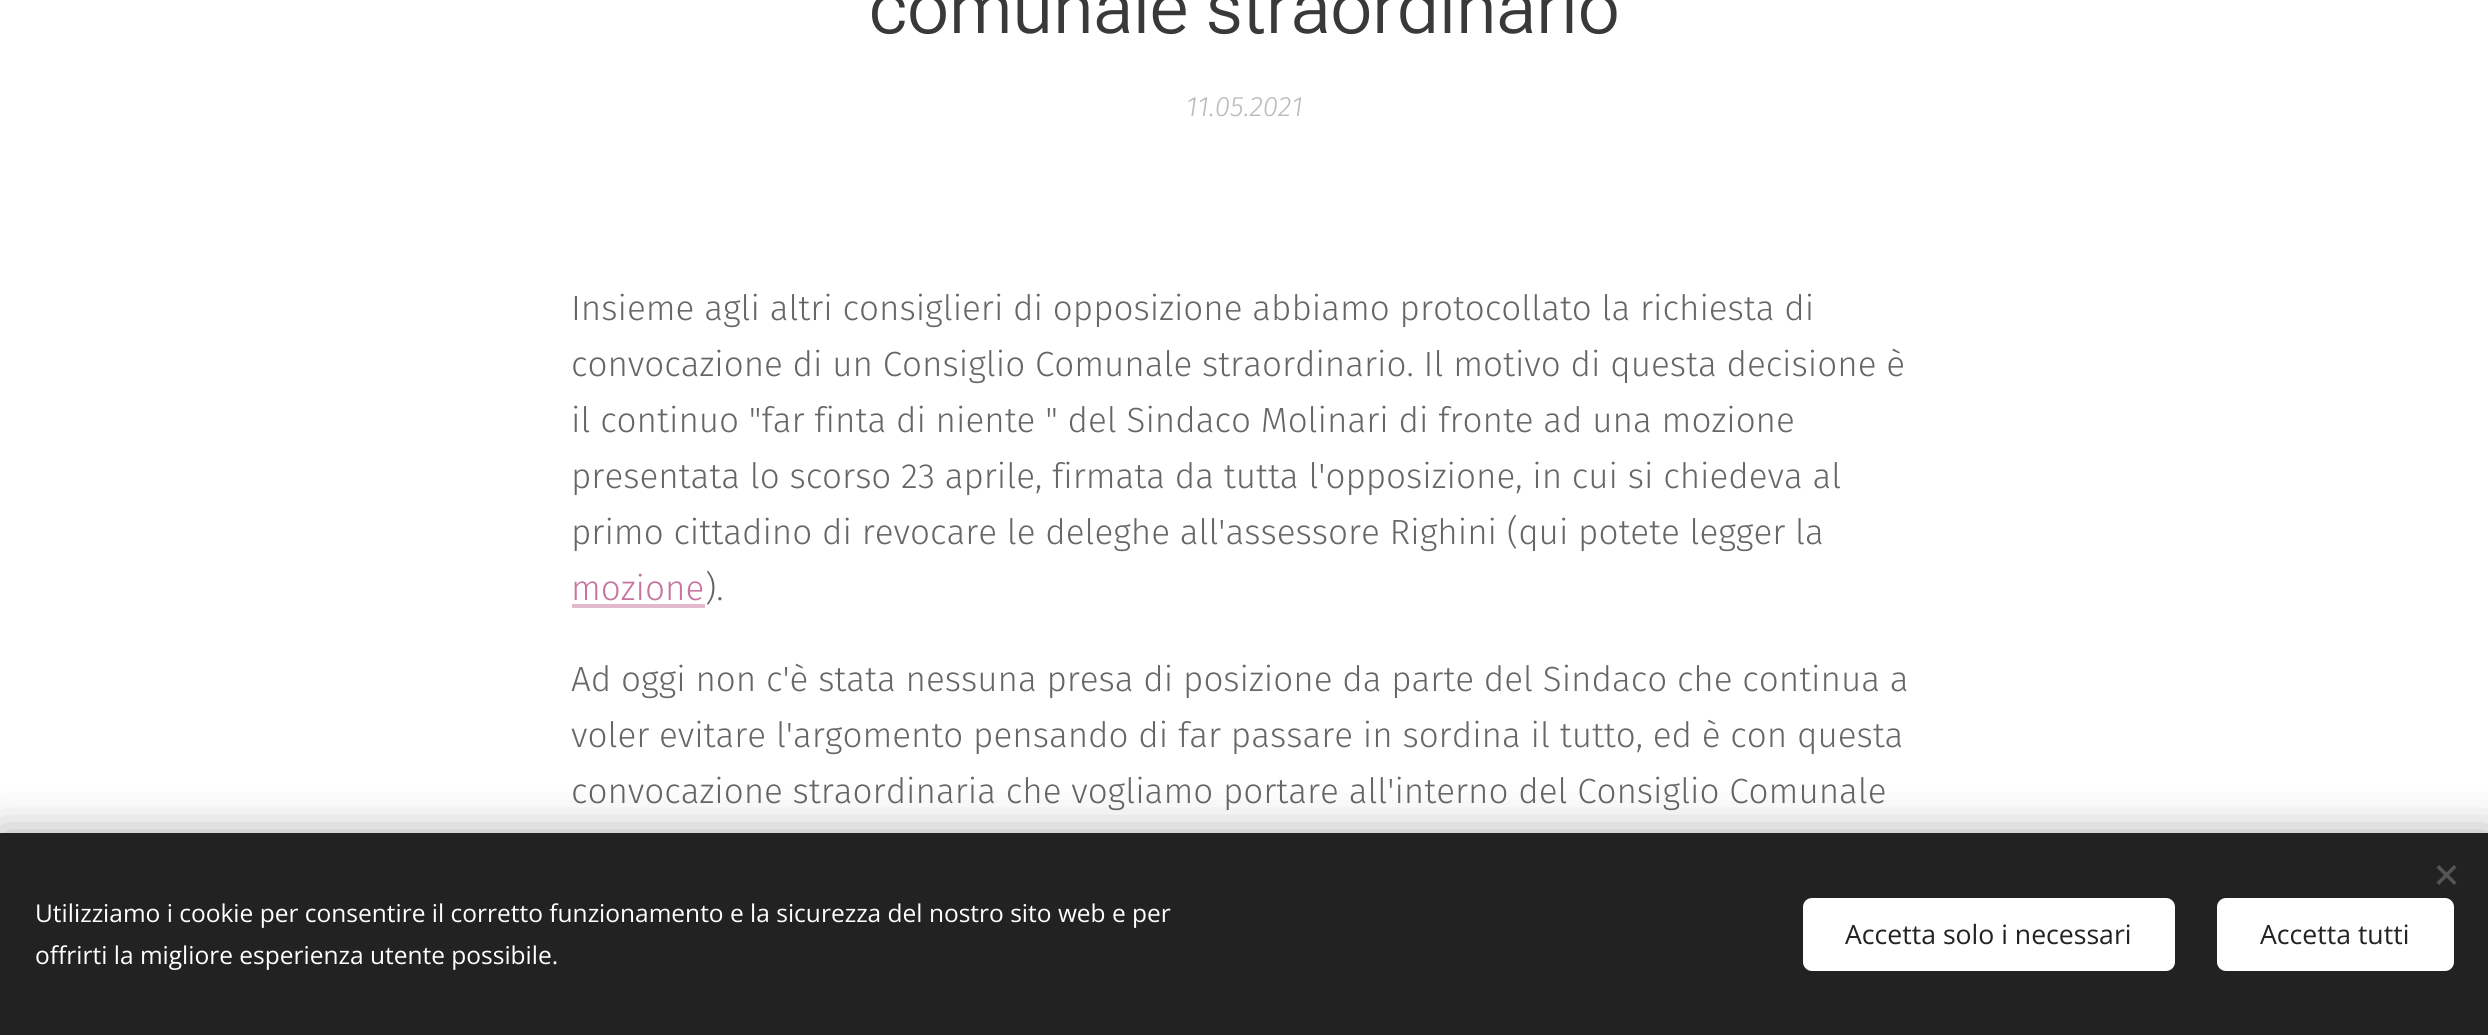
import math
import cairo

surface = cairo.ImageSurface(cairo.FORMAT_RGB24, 2488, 1035)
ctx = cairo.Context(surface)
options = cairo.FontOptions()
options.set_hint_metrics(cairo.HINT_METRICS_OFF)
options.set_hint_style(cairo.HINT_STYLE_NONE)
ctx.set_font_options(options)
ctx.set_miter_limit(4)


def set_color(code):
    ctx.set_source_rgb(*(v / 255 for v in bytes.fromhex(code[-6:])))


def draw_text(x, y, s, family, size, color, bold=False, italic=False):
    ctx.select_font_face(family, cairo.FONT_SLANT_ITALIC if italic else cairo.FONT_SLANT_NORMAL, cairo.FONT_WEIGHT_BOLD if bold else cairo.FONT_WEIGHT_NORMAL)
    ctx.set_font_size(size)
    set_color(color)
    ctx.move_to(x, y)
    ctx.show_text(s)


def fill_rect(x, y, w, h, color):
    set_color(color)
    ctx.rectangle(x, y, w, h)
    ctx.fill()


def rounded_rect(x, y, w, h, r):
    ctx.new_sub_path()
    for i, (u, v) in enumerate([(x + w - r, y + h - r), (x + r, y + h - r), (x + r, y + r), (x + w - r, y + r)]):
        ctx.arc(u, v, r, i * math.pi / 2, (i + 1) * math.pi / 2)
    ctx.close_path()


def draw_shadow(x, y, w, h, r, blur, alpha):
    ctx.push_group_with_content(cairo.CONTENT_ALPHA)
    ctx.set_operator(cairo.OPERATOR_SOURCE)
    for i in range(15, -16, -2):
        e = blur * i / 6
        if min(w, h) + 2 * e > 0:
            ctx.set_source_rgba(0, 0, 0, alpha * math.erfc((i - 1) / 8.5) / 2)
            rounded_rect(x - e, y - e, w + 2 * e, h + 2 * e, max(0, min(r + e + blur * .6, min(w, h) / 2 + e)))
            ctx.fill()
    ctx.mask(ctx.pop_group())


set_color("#ffffff")
ctx.paint()
draw_text(869, 33, "comunale straordinario", "Roboto Flex Light", 73.5, "#393939")
draw_text(1186, 116, "11.05.2021", "Fira Sans Light", 28, "#bababa", italic=True)
draw_text(571, 320, "Insieme agli altri consiglieri di opposizione abbiamo protocollato la richiesta di", "Fira Sans Light", 35, "#666666")
draw_text(571, 376, "convocazione di un Consiglio Comunale straordinario. Il motivo di questa decisione è", "Fira Sans Light", 35, "#666666")
draw_text(571, 432, "il continuo \"far finta di niente \" del Sindaco Molinari di fronte ad una mozione", "Fira Sans Light", 35, "#666666")
draw_text(571, 488, "presentata lo scorso 23 aprile, firmata da tutta l'opposizione, in cui si chiedeva al", "Fira Sans Light", 35, "#666666")
draw_text(571, 544, "primo cittadino di revocare le deleghe all'assessore Righini (qui potete legger la", "Fira Sans Light", 35, "#666666")
draw_text(571, 600, "mozione", "Fira Sans Light", 35, "#c6739e")
fill_rect(572, 604, 133, 4, "#e3b9cf")
draw_text(705, 600, ").", "Fira Sans Light", 35, "#666666")
draw_text(571, 691, "Ad oggi non c'è stata nessuna presa di posizione da parte del Sindaco che continua a", "Fira Sans Light", 35, "#666666")
draw_text(571, 747, "voler evitare l'argomento pensando di far passare in sordina il tutto, ed è con questa", "Fira Sans Light", 35, "#666666")
draw_text(571, 803, "convocazione straordinaria che vogliamo portare all'interno del Consiglio Comunale", "Fira Sans Light", 35, "#666666")
set_color("#000000")
draw_shadow(0, 833, 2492, 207, 0, 22, 0.33)
fill_rect(0, 833, 2488, 202, "#222222")
set_color("#555555")
ctx.new_path()
ctx.move_to(2436.5, 882.5)
ctx.line_to(2454, 865)
ctx.line_to(2456.5, 867.5)
ctx.line_to(2439, 885)
ctx.close_path()
ctx.fill()
ctx.new_path()
ctx.move_to(2439, 865)
ctx.line_to(2456.5, 882.5)
ctx.line_to(2454, 885)
ctx.line_to(2436.5, 867.5)
ctx.close_path()
ctx.fill()
draw_text(35, 922, "Utilizziamo i cookie per consentire il corretto funzionamento e la sicurezza del nostro sito web e per", "Open Sans", 24.5, "#ffffff")
draw_text(35, 964, "offrirti la migliore esperienza utente possibile.", "Open Sans", 24.5, "#ffffff")
rounded_rect(1803, 898, 372, 73, 9)
ctx.fill()
draw_text(1845, 944, "Accetta solo i necessari", "Open Sans", 26.6, "#222222")
set_color("#ffffff")
rounded_rect(2217, 898, 237, 73, 9)
ctx.fill()
draw_text(2260, 944, "Accetta tutti", "Open Sans", 26.6, "#222222")
surface.write_to_png("output.png")
